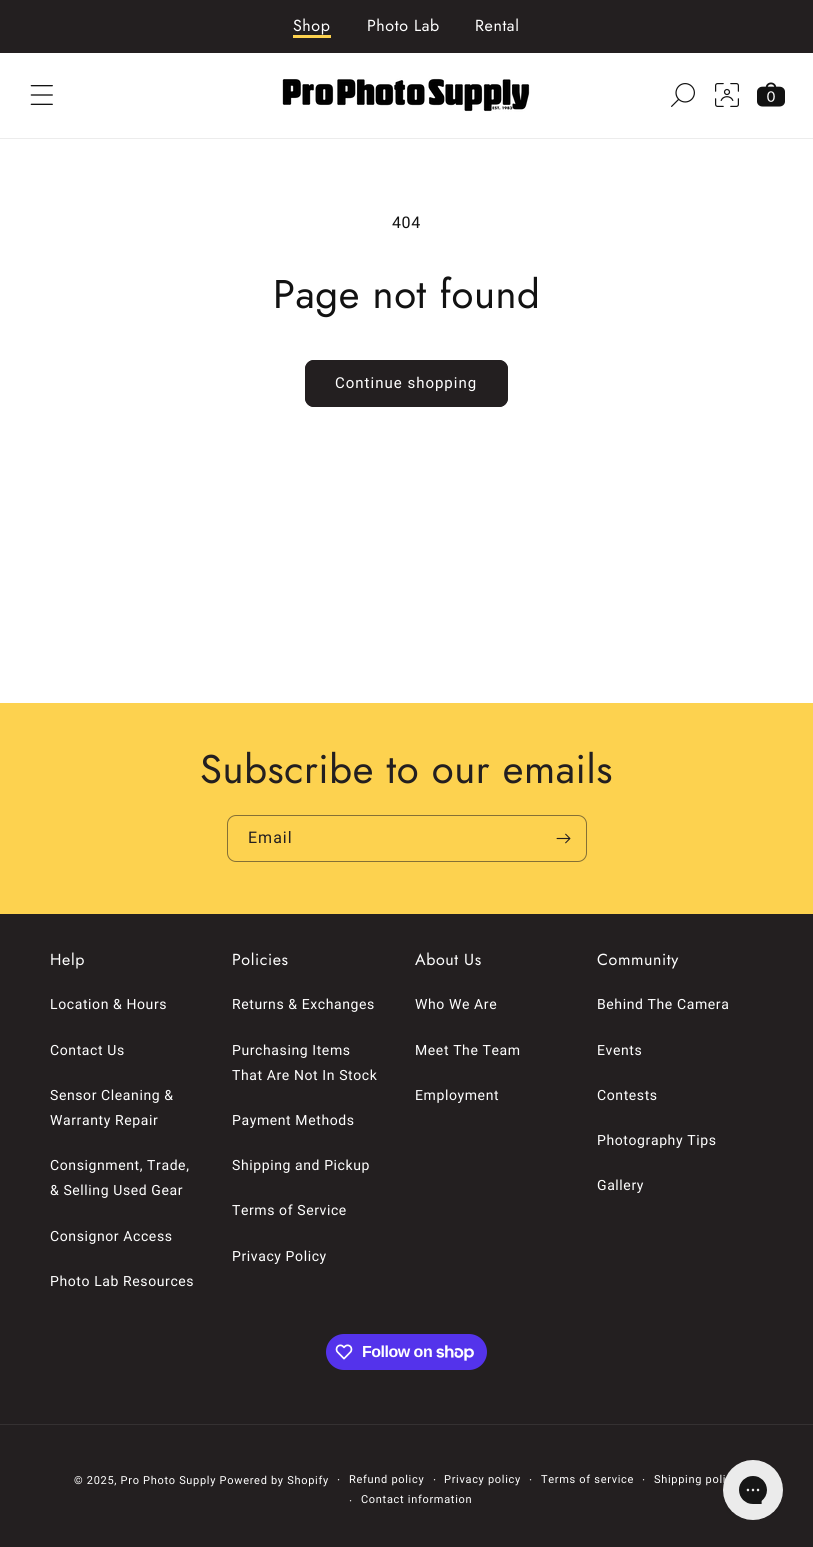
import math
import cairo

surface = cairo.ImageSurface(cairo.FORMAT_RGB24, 813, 1547)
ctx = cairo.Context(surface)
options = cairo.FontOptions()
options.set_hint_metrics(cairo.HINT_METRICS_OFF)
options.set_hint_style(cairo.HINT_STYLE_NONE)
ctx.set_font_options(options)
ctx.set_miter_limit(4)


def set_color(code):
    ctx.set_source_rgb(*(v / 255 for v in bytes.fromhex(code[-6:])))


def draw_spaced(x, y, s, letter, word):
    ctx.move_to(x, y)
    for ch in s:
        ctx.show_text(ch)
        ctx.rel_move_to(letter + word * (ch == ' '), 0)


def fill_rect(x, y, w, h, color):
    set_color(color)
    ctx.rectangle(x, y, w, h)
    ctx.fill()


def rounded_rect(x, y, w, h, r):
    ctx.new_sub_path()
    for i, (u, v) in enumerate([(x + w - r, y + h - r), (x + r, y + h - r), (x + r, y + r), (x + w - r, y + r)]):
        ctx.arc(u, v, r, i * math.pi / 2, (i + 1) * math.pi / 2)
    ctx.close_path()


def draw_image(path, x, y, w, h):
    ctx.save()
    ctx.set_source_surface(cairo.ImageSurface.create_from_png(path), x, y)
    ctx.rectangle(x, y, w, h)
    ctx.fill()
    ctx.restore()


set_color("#ffffff")
ctx.paint()
fill_rect(0, 0, 813, 53, "#231f20")
ctx.select_font_face("Jost")
ctx.set_font_size(16)
set_color("#ffffff")
draw_spaced(293, 31, "Shop", 0.6, 0)
fill_rect(293, 35, 38, 3, "#fdd24f")
set_color("#ffffff")
draw_spaced(367, 31, "Photo Lab", 0.6, 0)
draw_spaced(475, 31, "Rental", 0.6, 0)
fill_rect(0, 138, 813, 1, "#ececec")
draw_image("assets/img1.png", 30, 85, 23, 20)
draw_image("assets/img2.png", 282, 78, 248, 34)
draw_image("assets/img3.png", 671, 83, 24, 24)
draw_image("assets/img4.png", 715, 83, 24, 24)
draw_image("assets/img5.png", 757, 82, 28, 25)
ctx.select_font_face("Roboto")
set_color("#121212")
draw_spaced(392, 228, "404", 0.6, 0)
ctx.select_font_face("Jost")
ctx.set_font_size(40)
draw_spaced(273, 308, "Page not found", 0.6, 0)
set_color("#231f20")
rounded_rect(305, 360, 203, 47, 9)
ctx.fill()
rounded_rect(305.5, 360.5, 202, 46, 8.5)
ctx.set_line_width(1)
ctx.stroke()
ctx.select_font_face("Roboto")
ctx.set_font_size(15)
set_color("#ffffff")
draw_spaced(335, 388, "Continue shopping", 1, 0)
fill_rect(0, 703, 813, 211, "#fdd24f")
ctx.select_font_face("Jost")
ctx.set_font_size(40)
set_color("#231f20")
draw_spaced(200, 783, "Subscribe to our emails", 0.6, 0)
rounded_rect(227.5, 815.5, 359, 46, 8.5)
set_color("#857035")
ctx.stroke()
ctx.select_font_face("Roboto")
ctx.set_font_size(16)
set_color("#231f20")
draw_spaced(248, 843, "Email", 1, 0)
draw_image("assets/img6.png", 556, 833, 15, 11)
fill_rect(0, 914, 813, 633, "#231f20")
ctx.select_font_face("Jost")
set_color("#ffffff")
draw_spaced(50, 965, "Help", 0.6, 0)
ctx.select_font_face("Roboto")
ctx.set_font_size(14)
draw_spaced(50, 1009, "Location & Hours", 0.6, 0)
draw_spaced(50, 1055, "Contact Us", 0.6, 0)
draw_spaced(50, 1100, "Sensor Cleaning &", 0.6, 0)
draw_spaced(50, 1125, "Warranty Repair", 0.6, 0)
draw_spaced(50, 1170, "Consignment, Trade,", 0.6, 0)
draw_spaced(50, 1195, "& Selling Used Gear", 0.6, 0)
draw_spaced(50, 1241, "Consignor Access", 0.6, 0)
draw_spaced(50, 1286, "Photo Lab Resources", 0.6, 0)
ctx.select_font_face("Jost")
ctx.set_font_size(16)
draw_spaced(232, 965, "Policies", 0.6, 0)
ctx.select_font_face("Roboto")
ctx.set_font_size(14)
draw_spaced(232, 1009, "Returns & Exchanges", 0.6, 0)
draw_spaced(232, 1055, "Purchasing Items", 0.6, 0)
draw_spaced(232, 1080, "That Are Not In Stock", 0.6, 0)
draw_spaced(232, 1125, "Payment Methods", 0.6, 0)
draw_spaced(232, 1170, "Shipping and Pickup", 0.6, 0)
draw_spaced(232, 1215, "Terms of Service", 0.6, 0)
draw_spaced(232, 1261, "Privacy Policy", 0.6, 0)
ctx.select_font_face("Jost")
ctx.set_font_size(16)
draw_spaced(415, 965, "About Us", 0.6, 0)
ctx.select_font_face("Roboto")
ctx.set_font_size(14)
draw_spaced(415, 1009, "Who We Are", 0.6, 0)
draw_spaced(415, 1055, "Meet The Team", 0.6, 0)
draw_spaced(415, 1100, "Employment", 0.6, 0)
ctx.select_font_face("Jost")
ctx.set_font_size(16)
draw_spaced(597, 965, "Community", 0.6, 0)
ctx.select_font_face("Roboto")
ctx.set_font_size(14)
draw_spaced(597, 1009, "Behind The Camera", 0.6, 0)
draw_spaced(597, 1055, "Events", 0.6, 0)
draw_spaced(597, 1100, "Contests", 0.6, 0)
draw_spaced(597, 1145, "Photography Tips", 0.6, 0)
draw_spaced(597, 1190, "Gallery", 0.6, 0)
set_color("#5433eb")
rounded_rect(326, 1334, 161, 36, 18)
ctx.fill()
draw_image("assets/img7.png", 335, 1344, 18, 16)
ctx.select_font_face("Liberation Sans", cairo.FONT_SLANT_NORMAL, cairo.FONT_WEIGHT_BOLD)
ctx.set_font_size(16)
set_color("#ffffff")
draw_spaced(362, 1357, "Follow on", -0.5, 0)
draw_image("assets/img8.png", 436, 1345, 38, 16)
fill_rect(0, 1424, 813, 1, "#353132")
ctx.select_font_face("Roboto")
ctx.set_font_size(11)
set_color("#ffffff")
draw_spaced(74, 1484, "© 2025, Pro Photo Supply Powered by Shopify", 0.7, 0)
ctx.set_font_size(12)
draw_spaced(337, 1484, "·", 0.7, 0)
ctx.set_font_size(11)
draw_spaced(349, 1483, "Refund policy", 0.7, 0)
ctx.set_font_size(12)
draw_spaced(433, 1484, "·", 0.7, 0)
ctx.set_font_size(11)
draw_spaced(444, 1483, "Privacy policy", 0.7, 0)
ctx.set_font_size(12)
draw_spaced(529, 1484, "·", 0.7, 0)
ctx.set_font_size(11)
draw_spaced(541, 1483, "Terms of service", 0.7, 0)
ctx.set_font_size(12)
draw_spaced(642, 1484, "·", 0.7, 0)
ctx.set_font_size(11)
draw_spaced(654, 1483, "Shipping poli", 0.7, 0)
ctx.set_font_size(12)
draw_spaced(349, 1505, "·", 0.7, 0)
ctx.set_font_size(11)
draw_spaced(361, 1503, "Contact information", 0.7, 0)
draw_image("assets/img9.png", 723, 1460, 60, 60)
surface.write_to_png("output.png")
